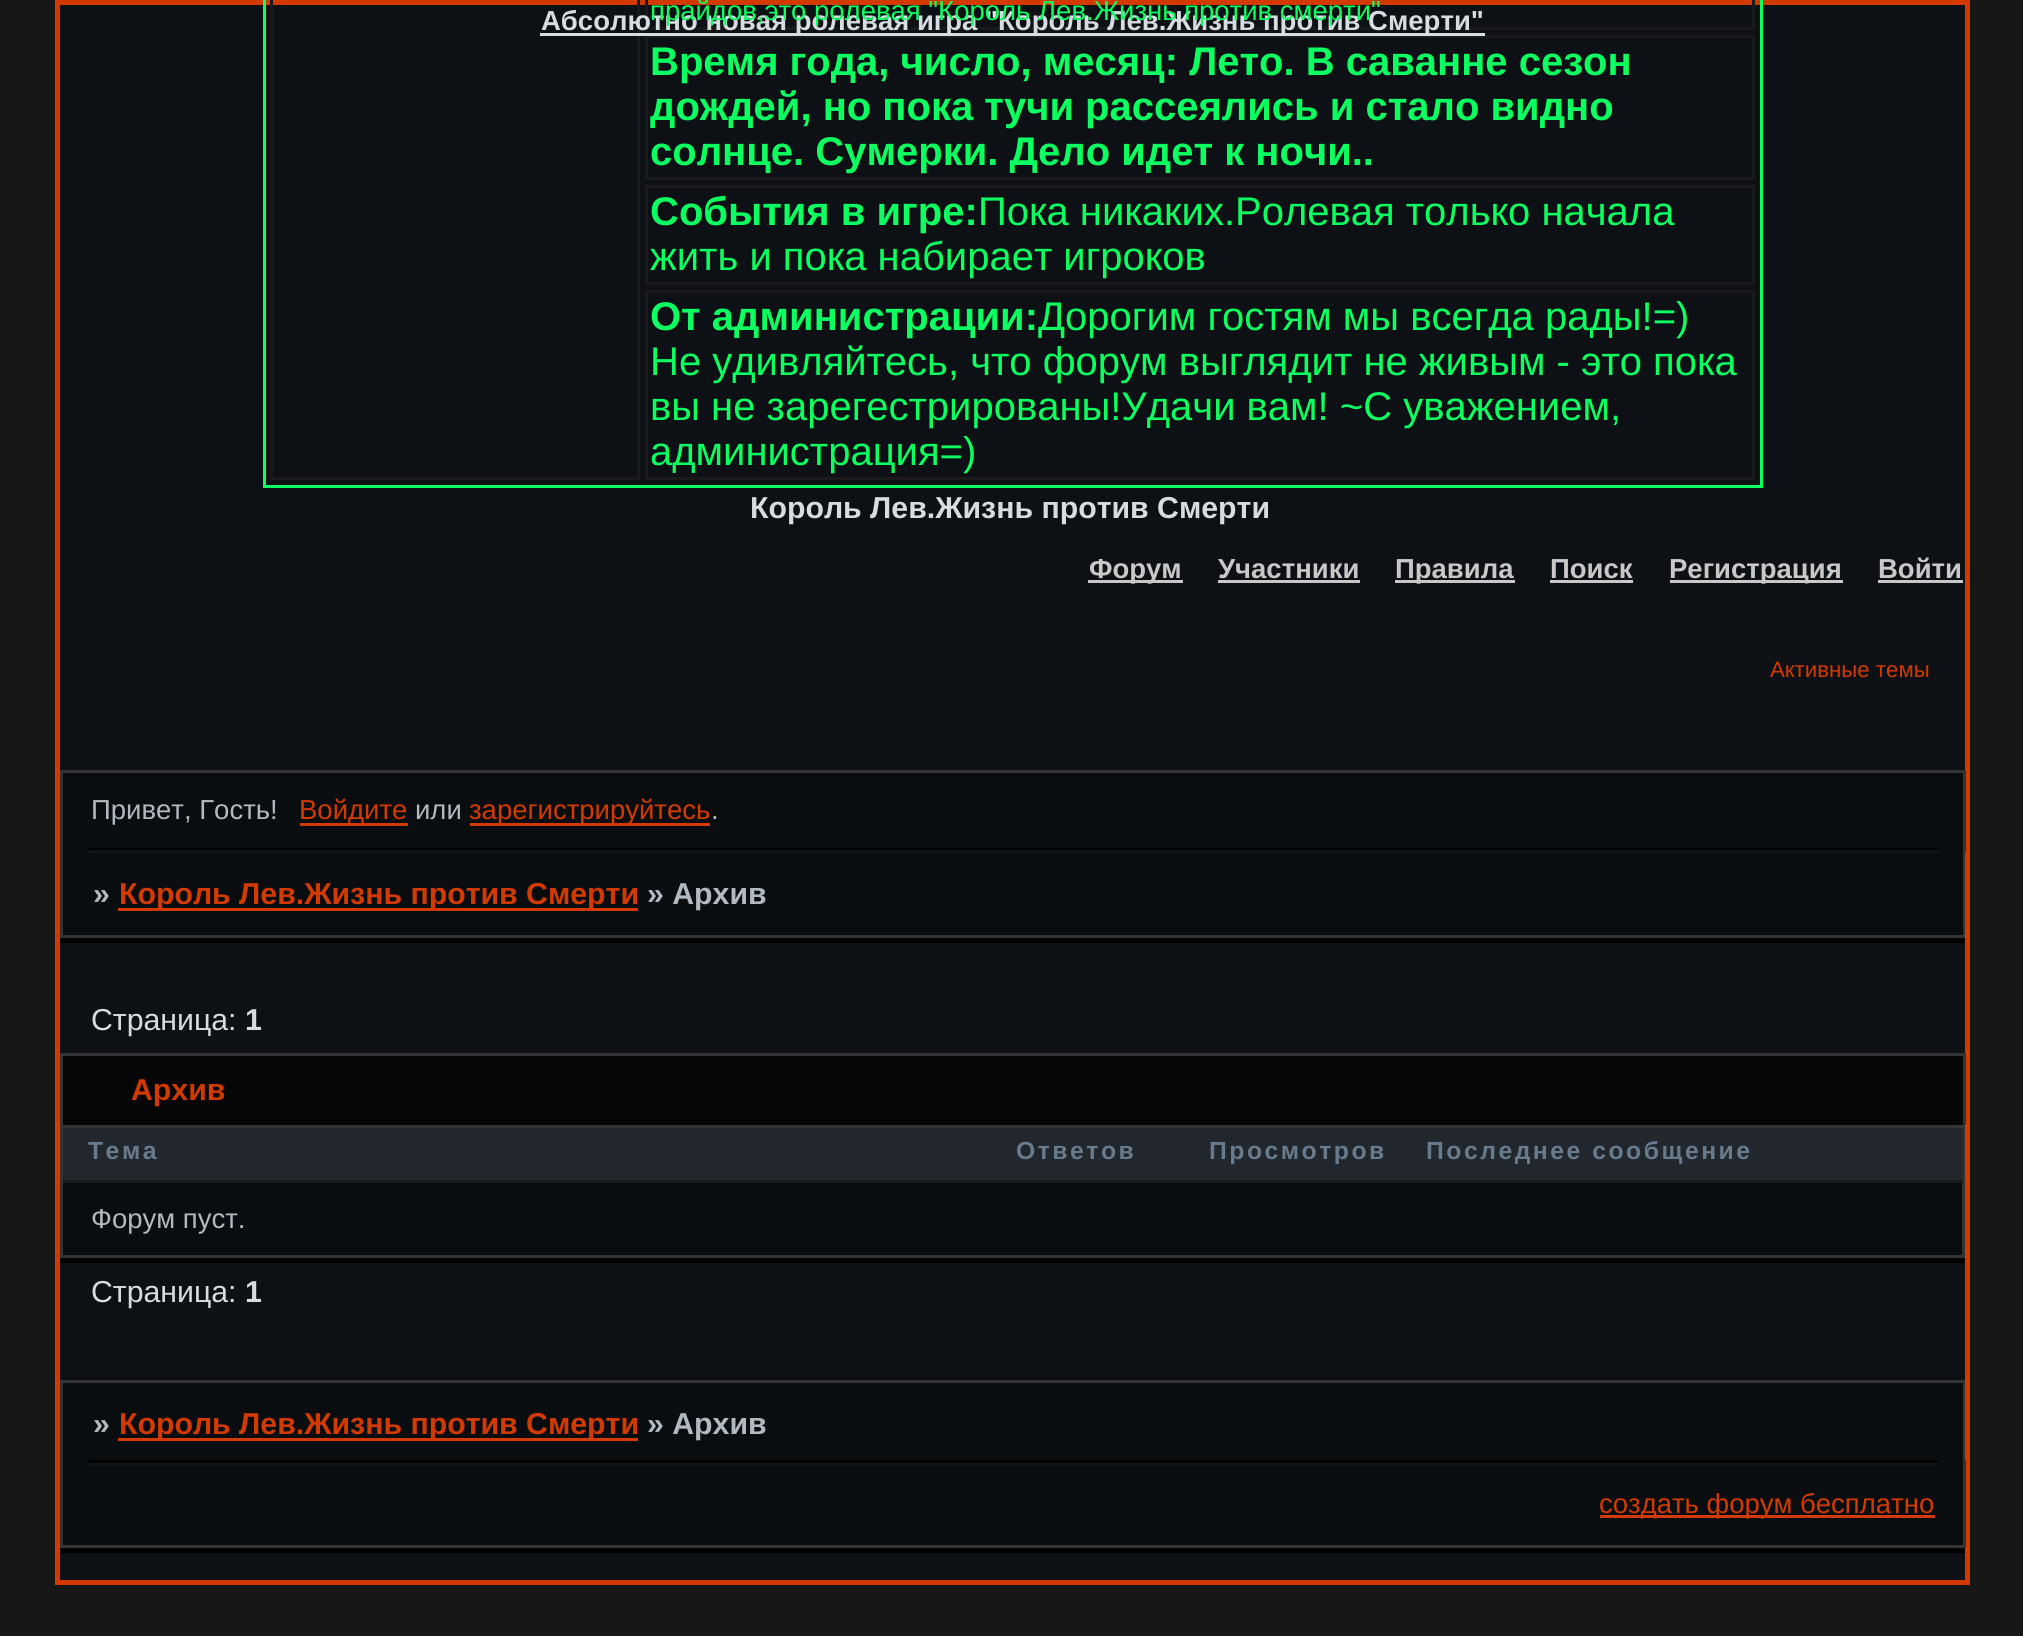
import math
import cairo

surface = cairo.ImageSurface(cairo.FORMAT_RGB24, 2023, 1636)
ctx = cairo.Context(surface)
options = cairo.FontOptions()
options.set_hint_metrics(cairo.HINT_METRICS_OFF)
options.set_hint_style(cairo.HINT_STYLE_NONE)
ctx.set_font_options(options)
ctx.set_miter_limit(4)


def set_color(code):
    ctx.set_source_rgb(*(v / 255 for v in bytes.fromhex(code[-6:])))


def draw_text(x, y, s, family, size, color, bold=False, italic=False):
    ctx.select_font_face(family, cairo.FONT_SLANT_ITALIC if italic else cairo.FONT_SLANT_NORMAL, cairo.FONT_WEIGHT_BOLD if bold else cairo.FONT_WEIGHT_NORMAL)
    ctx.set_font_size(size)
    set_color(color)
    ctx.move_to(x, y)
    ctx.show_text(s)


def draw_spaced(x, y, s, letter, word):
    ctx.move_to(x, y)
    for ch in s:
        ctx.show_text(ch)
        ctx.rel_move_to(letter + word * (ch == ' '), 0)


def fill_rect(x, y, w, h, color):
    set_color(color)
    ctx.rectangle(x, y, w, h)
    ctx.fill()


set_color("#171717")
ctx.paint()
set_color("#0d1014")
ctx.rectangle(57.5, 2.5, 1910, 1580)
ctx.fill_preserve()
set_color("#d23a02")
ctx.set_line_width(5)
ctx.stroke()
ctx.rectangle(264.5, -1.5, 1497, 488)
set_color("#0cff60")
ctx.set_line_width(3)
ctx.stroke()
ctx.rectangle(271.5, -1.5, 367, 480)
set_color("#1a1a1a")
ctx.stroke()
ctx.rectangle(646.5, -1.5, 1107, 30)
ctx.stroke()
ctx.rectangle(646.5, 36.5, 1107, 142)
ctx.stroke()
fill_rect(540, 33, 945, 3, "#d7dce1")
draw_text(541, 30, "Абсолютно новая ролевая игра \"Король Лев.Жизнь против Смерти\"", "Liberation Sans", 27.5, "#d7dce1", bold=True)
draw_text(650, 20, "прайдов,это ролевая \"Король Лев.Жизнь против смерти\"", "Liberation Sans", 27.5, "#0cff60")
draw_text(650, 75, "Время года, число, месяц: Лето. В саванне сезон", "Liberation Sans", 40, "#0cff60", bold=True)
draw_text(650, 120, "дождей, но пока тучи рассеялись и стало видно", "Liberation Sans", 40, "#0cff60", bold=True)
draw_text(650, 165, "солнце. Сумерки. Дело идет к ночи..", "Liberation Sans", 40, "#0cff60", bold=True)
ctx.rectangle(646.5, 186.5, 1107, 97)
set_color("#1a1a1a")
ctx.stroke()
draw_text(650, 225, "События в игре:", "Liberation Sans", 40, "#0cff60", bold=True)
draw_text(978, 225, "Пока никаких.Ролевая только начала", "Liberation Sans", 40, "#0cff60")
draw_text(650, 270, "жить и пока набирает игроков", "Liberation Sans", 40, "#0cff60")
ctx.rectangle(646.5, 291.5, 1107, 187)
set_color("#1a1a1a")
ctx.stroke()
draw_text(650, 330, "От администрации:", "Liberation Sans", 40, "#0cff60", bold=True)
draw_text(1038, 330, "Дорогим гостям мы всегда рады!=)", "Liberation Sans", 40, "#0cff60")
draw_text(650, 375, "Не удивляйтесь, что форум выглядит не живым - это пока", "Liberation Sans", 40, "#0cff60")
draw_text(650, 420, "вы не зарегестрированы!Удачи вам! ~С уважением,", "Liberation Sans", 40, "#0cff60")
draw_text(650, 465, "администрация=)", "Liberation Sans", 40, "#0cff60")
draw_text(750, 518, "Король Лев.Жизнь против Смерти", "Liberation Sans", 30.25, "#d7dce1", bold=True)
fill_rect(1088, 580, 95, 3, "#c8c8c8")
draw_text(1089, 578, "Форум", "Liberation Sans", 27.5, "#c8c8c8", bold=True)
draw_text(1218, 578, "Участники", "Liberation Sans", 27.5, "#c8c8c8", bold=True)
fill_rect(1218, 580, 142, 3, "#c8c8c8")
fill_rect(1395, 580, 120, 3, "#c8c8c8")
draw_text(1395, 578, "Правила", "Liberation Sans", 27.5, "#c8c8c8", bold=True)
draw_text(1550, 578, "Поиск", "Liberation Sans", 27.5, "#c8c8c8", bold=True)
fill_rect(1550, 580, 83, 3, "#c8c8c8")
fill_rect(1670, 580, 173, 3, "#c8c8c8")
draw_text(1669, 578, "Регистрация", "Liberation Sans", 27.5, "#c8c8c8", bold=True)
draw_text(1878, 578, "Войти", "Liberation Sans", 27.5, "#c8c8c8", bold=True)
fill_rect(1878, 580, 85, 3, "#c8c8c8")
draw_text(1770, 677, "Активные темы", "Liberation Sans", 22.25, "#d23a02")
fill_rect(63, 773, 1900, 162, "#0a0d10")
fill_rect(60, 770, 1905, 3, "#343434")
fill_rect(1963, 770, 3, 83, "#343434")
fill_rect(60, 770, 3, 83, "#343434")
draw_text(91, 819, "Привет, Гость!", "Liberation Sans", 27.5, "#b1b9c1")
fill_rect(300, 823, 108, 3, "#d23a02")
draw_text(299, 819, "Войдите", "Liberation Sans", 27.5, "#d23a02")
draw_text(415, 819, "или", "Liberation Sans", 27.5, "#b1b9c1")
fill_rect(470, 823, 240, 3, "#d23a02")
draw_text(469, 819, "зарегистрируйтесь", "Liberation Sans", 27.5, "#d23a02")
draw_text(711, 819, ".", "Liberation Sans", 27.5, "#b1b9c1")
fill_rect(88, 848, 1850, 2, "#000000")
fill_rect(88, 850, 1850, 3, "#11151a")
fill_rect(60, 938, 1905, 5, "#000000")
fill_rect(1963, 848, 2, 90, "#343434")
fill_rect(60, 935, 1905, 3, "#343434")
fill_rect(60, 848, 3, 90, "#343434")
draw_text(93, 904, "»", "Liberation Sans", 30.25, "#b1b9c1", bold=True)
fill_rect(118, 908, 520, 3, "#d23a02")
draw_text(119, 904, "Король Лев.Жизнь против Смерти", "Liberation Sans", 30.25, "#d23a02", bold=True)
draw_text(647, 904, "» Архив", "Liberation Sans", 30.25, "#b1b9c1", bold=True)
draw_text(91, 1030, "Страница:", "Liberation Sans", 30.25, "#d7dce1")
draw_text(245, 1030, "1", "Liberation Sans", 30.25, "#d7dce1", bold=True)
fill_rect(63, 1056, 1900, 69, "#060606")
fill_rect(60, 1053, 1905, 3, "#343434")
fill_rect(1963, 1053, 3, 72, "#343434")
fill_rect(60, 1053, 3, 72, "#343434")
draw_text(131, 1100, "Архив", "Liberation Sans", 30.25, "#d23a02", bold=True)
fill_rect(60, 1258, 1905, 5, "#000000")
fill_rect(63, 1183, 1899, 72, "#0a0d10")
ctx.rectangle(61.5, 1126.5, 1902, 130)
set_color("#343434")
ctx.stroke()
fill_rect(63, 1128, 1900, 52, "#22272e")
ctx.set_font_size(24.75)
set_color("#677b8d")
draw_spaced(88, 1159, "Тема", 2.5, 0)
draw_spaced(1016, 1159, "Ответов", 2.5, 0)
draw_spaced(1209, 1159, "Просмотров", 2.5, 0)
draw_spaced(1426, 1159, "Последнее сообщение", 2.5, 0)
fill_rect(63, 1180, 1900, 3, "#1a1a1a")
draw_text(91, 1228, "Форум пуст.", "Liberation Sans", 27.5, "#b1b9c1")
draw_text(91, 1302, "Страница:", "Liberation Sans", 30.25, "#d7dce1")
draw_text(245, 1302, "1", "Liberation Sans", 30.25, "#d7dce1", bold=True)
fill_rect(60, 1380, 1905, 3, "#343434")
fill_rect(1963, 1460, 3, 88, "#343434")
fill_rect(1963, 1380, 2, 85, "#343434")
fill_rect(60, 1545, 1905, 3, "#343434")
fill_rect(60, 1460, 3, 88, "#343434")
fill_rect(60, 1380, 3, 85, "#343434")
fill_rect(63, 1383, 1900, 162, "#0a0d10")
draw_text(93, 1434, "»", "Liberation Sans", 30.25, "#b1b9c1", bold=True)
fill_rect(118, 1438, 520, 3, "#d23a02")
draw_text(119, 1434, "Король Лев.Жизнь против Смерти", "Liberation Sans", 30.25, "#d23a02", bold=True)
draw_text(647, 1434, "» Архив", "Liberation Sans", 30.25, "#b1b9c1", bold=True)
fill_rect(88, 1460, 1850, 3, "#000000")
fill_rect(88, 1463, 1850, 3, "#11151a")
fill_rect(60, 1548, 1905, 5, "#000000")
fill_rect(1600, 1515, 335, 3, "#d23a02")
draw_text(1599, 1513, "создать форум бесплатно", "Liberation Sans", 27.5, "#d23a02")
surface.write_to_png("output.png")
